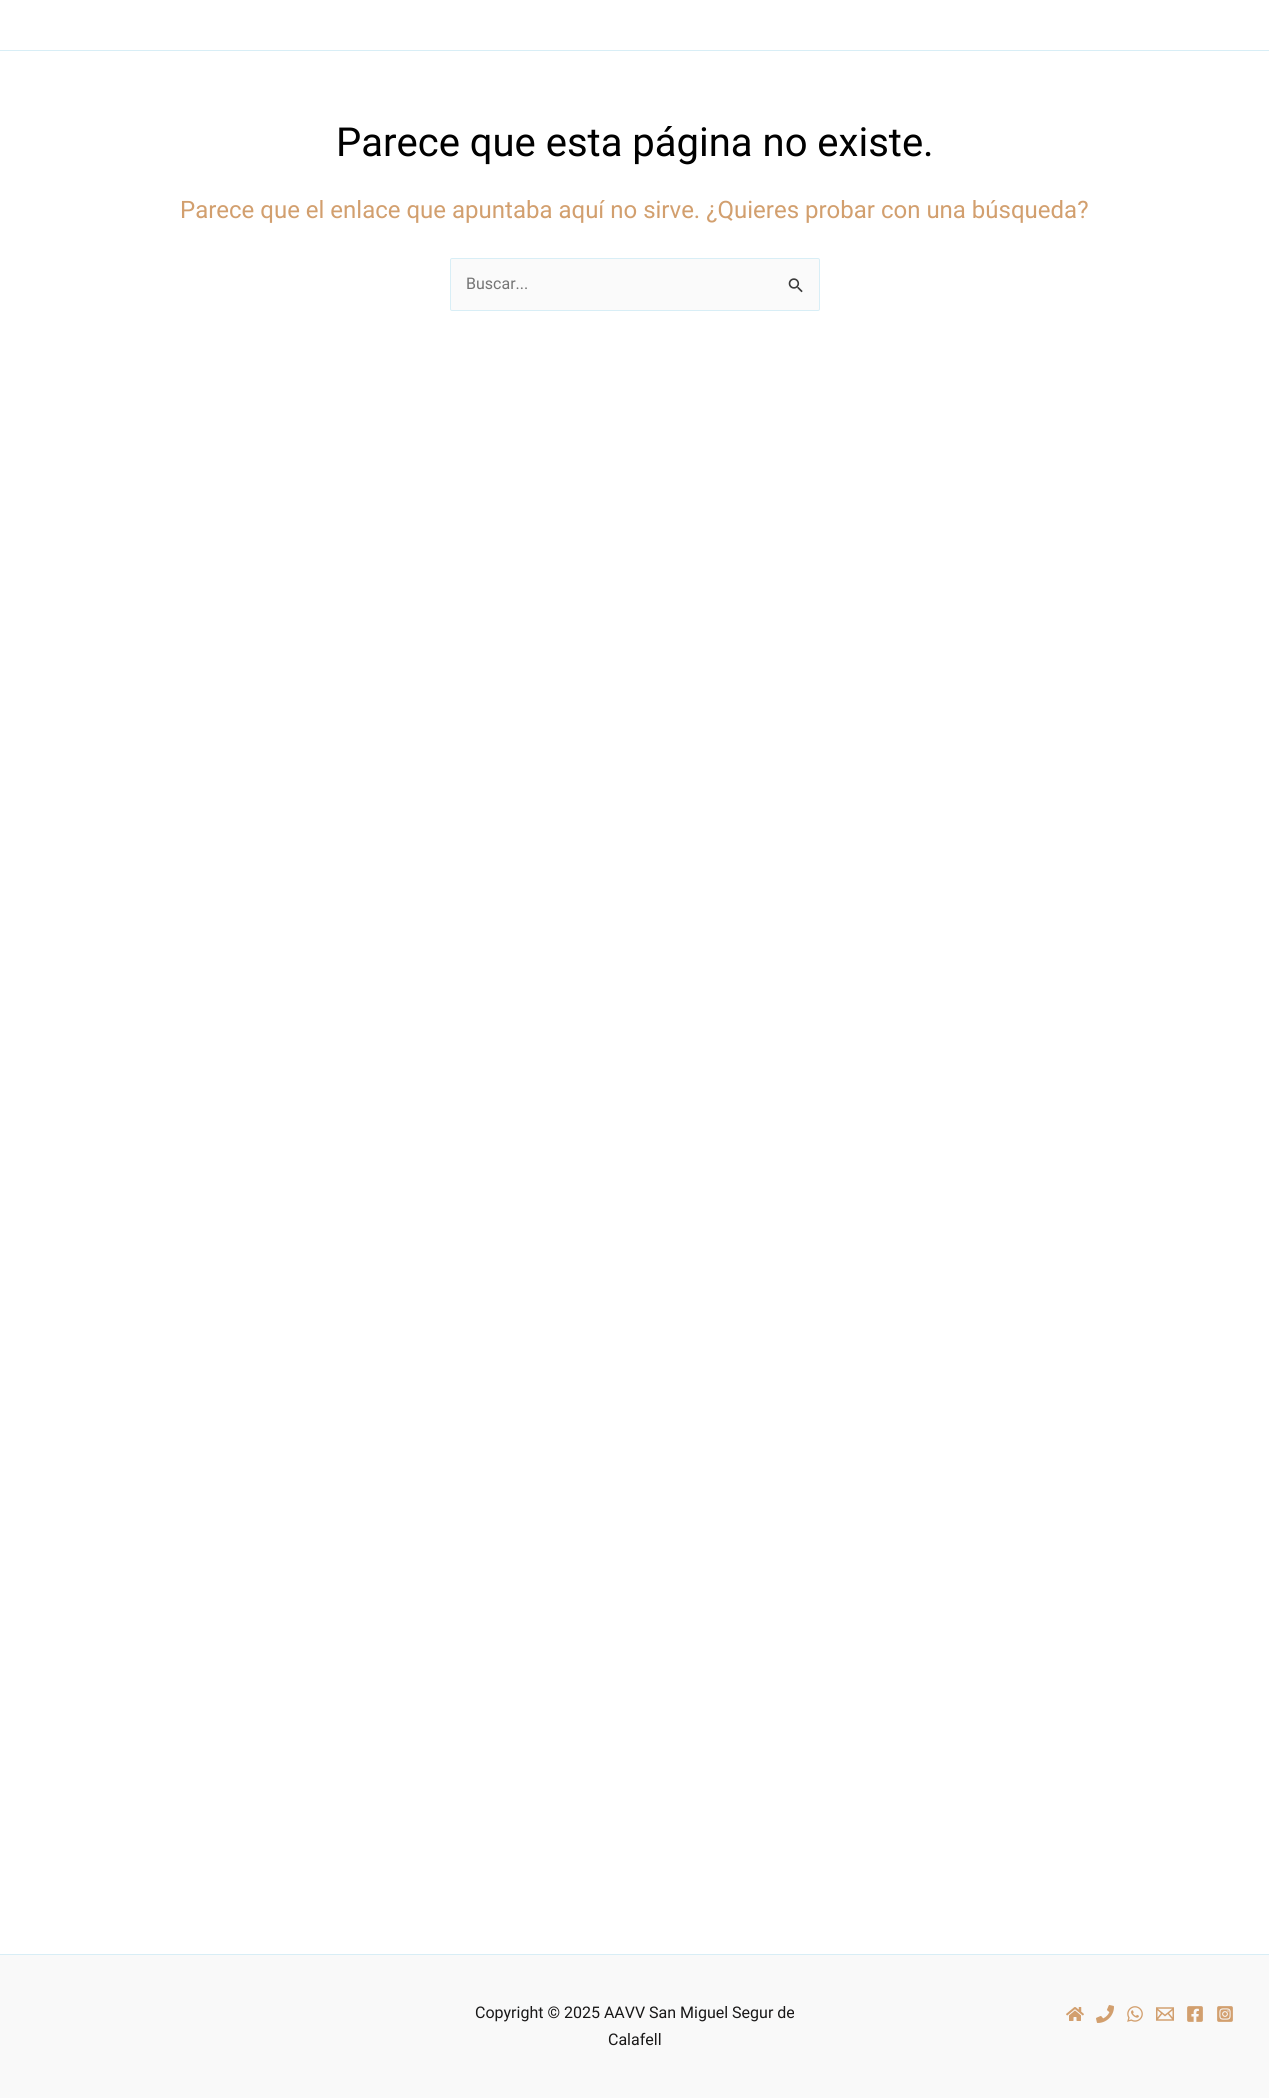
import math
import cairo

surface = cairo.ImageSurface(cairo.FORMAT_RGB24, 1269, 2098)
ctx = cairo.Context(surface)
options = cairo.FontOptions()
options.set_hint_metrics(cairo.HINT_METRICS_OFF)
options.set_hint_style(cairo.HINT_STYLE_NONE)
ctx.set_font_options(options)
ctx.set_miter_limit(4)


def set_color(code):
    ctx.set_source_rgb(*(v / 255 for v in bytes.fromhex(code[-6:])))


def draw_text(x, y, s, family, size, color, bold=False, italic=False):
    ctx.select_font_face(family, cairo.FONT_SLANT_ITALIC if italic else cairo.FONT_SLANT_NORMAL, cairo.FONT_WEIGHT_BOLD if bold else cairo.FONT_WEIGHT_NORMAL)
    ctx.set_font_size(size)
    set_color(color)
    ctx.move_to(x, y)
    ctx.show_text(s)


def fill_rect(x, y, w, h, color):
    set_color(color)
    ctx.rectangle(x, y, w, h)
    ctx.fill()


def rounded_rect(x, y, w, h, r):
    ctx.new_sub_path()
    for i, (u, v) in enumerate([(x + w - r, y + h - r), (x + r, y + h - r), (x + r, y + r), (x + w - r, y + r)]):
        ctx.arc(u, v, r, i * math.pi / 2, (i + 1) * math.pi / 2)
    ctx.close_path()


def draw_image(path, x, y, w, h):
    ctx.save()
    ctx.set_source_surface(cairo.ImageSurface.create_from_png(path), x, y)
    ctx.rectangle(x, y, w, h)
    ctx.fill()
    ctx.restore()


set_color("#ffffff")
ctx.paint()
fill_rect(0, 50, 1269, 1, "#d8eef6")
draw_text(336, 156, "Parece que esta página no existe.", "Roboto", 40, "#000000")
draw_text(180, 218, "Parece que el enlace que apuntaba aquí no sirve. ¿Quieres probar con una búsqueda?", "Roboto", 24, "#d29f6e")
set_color("#fafafa")
rounded_rect(450.5, 258.5, 369, 52, 1.5)
ctx.fill_preserve()
set_color("#d8eef6")
ctx.set_line_width(1)
ctx.stroke()
draw_text(466, 289, "Buscar...", "Roboto", 16, "#757575")
draw_image("assets/img1.png", 788, 278, 15, 15)
fill_rect(0, 1954, 1269, 1, "#d8eef6")
fill_rect(0, 1955, 1269, 143, "#f9f9f9")
draw_text(475, 2018, "Copyright © 2025 AAVV San Miguel Segur de", "Roboto", 16, "#191818")
draw_text(608, 2045, "Calafell", "Roboto", 16, "#191818")
draw_image("assets/img2.png", 1066, 2007, 18, 14)
draw_image("assets/img3.png", 1096, 2005, 18, 18)
draw_image("assets/img4.png", 1127, 2006, 16, 16)
draw_image("assets/img5.png", 1156, 2007, 18, 14)
draw_image("assets/img6.png", 1187, 2006, 16, 16)
draw_image("assets/img7.png", 1217, 2006, 16, 16)
surface.write_to_png("output.png")
